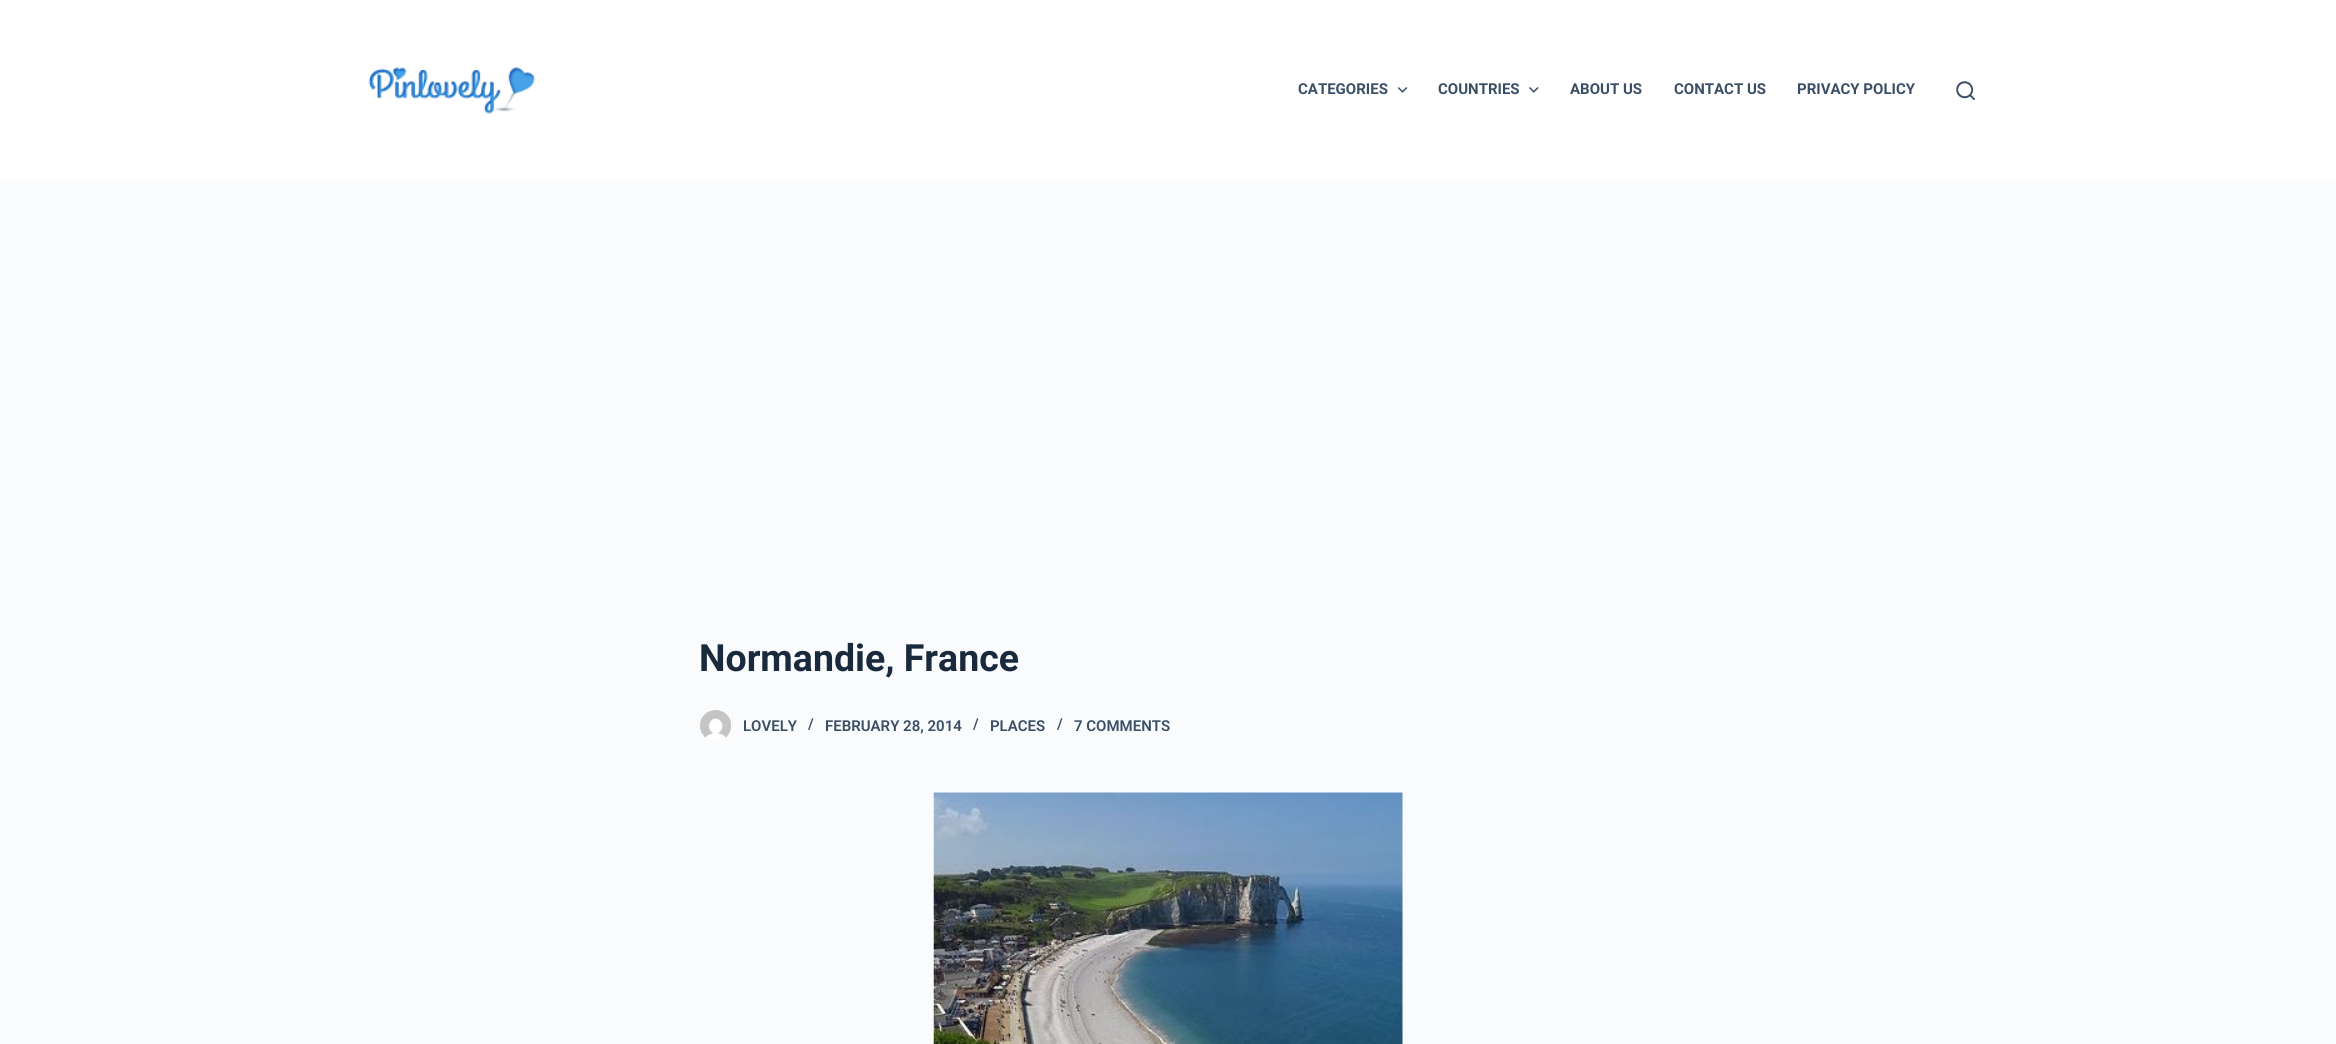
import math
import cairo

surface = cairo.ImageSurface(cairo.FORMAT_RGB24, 2336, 1044)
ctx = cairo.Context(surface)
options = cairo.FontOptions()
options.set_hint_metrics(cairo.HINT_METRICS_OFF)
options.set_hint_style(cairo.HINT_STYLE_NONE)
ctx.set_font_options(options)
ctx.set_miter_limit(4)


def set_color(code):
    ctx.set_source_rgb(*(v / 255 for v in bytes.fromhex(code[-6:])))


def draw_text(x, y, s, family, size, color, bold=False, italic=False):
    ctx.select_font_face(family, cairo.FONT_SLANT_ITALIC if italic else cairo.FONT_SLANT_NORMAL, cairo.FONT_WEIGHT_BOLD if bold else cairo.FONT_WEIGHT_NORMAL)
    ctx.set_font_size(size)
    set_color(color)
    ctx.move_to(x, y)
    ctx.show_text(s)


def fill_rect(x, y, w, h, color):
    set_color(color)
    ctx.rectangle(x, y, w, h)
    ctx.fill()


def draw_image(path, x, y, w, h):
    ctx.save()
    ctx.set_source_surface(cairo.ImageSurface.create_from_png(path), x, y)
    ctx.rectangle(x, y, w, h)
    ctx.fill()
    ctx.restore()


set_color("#fafbfc")
ctx.paint()
fill_rect(0, 0, 2336, 180, "#ffffff")
draw_image("assets/img1.png", 368, 67, 168, 47)
draw_text(1298, 94, "CATEGORIES", "Roboto", 15, "#3a4f66", bold=True)
draw_image("assets/img2.png", 1398, 87, 10, 6)
draw_text(1438, 94, "COUNTRIES", "Roboto", 15, "#3a4f66", bold=True)
draw_image("assets/img3.png", 1529, 87, 10, 6)
draw_text(1570, 94, "ABOUT US", "Roboto", 15, "#3a4f66", bold=True)
draw_text(1674, 94, "CONTACT US", "Roboto", 15, "#3a4f66", bold=True)
draw_text(1797, 94, "PRIVACY POLICY", "Roboto", 15, "#3a4f66", bold=True)
draw_image("assets/img4.png", 1956, 81, 19, 19)
draw_text(699, 671, "Normandie, France", "Roboto", 37.5, "#192a3d", bold=True)
draw_image("assets/img5.png", 700, 710, 31, 31)
draw_text(743, 731, "LOVELY", "Roboto SemiBold", 15, "#3a4f66")
draw_text(808, 729, "/", "Roboto SemiBold", 15, "#3a4f66")
draw_text(825, 731, "FEBRUARY 28, 2014", "Roboto SemiBold", 15, "#3a4f66")
draw_text(973, 729, "/", "Roboto SemiBold", 15, "#3a4f66")
draw_text(990, 731, "PLACES", "Roboto SemiBold", 15, "#3a4f66")
draw_text(1057, 729, "/", "Roboto SemiBold", 15, "#3a4f66")
draw_text(1074, 731, "7 COMMENTS", "Roboto SemiBold", 15, "#3a4f66")
draw_image("assets/img6.png", 933, 792, 470, 252)
surface.write_to_png("output.png")
